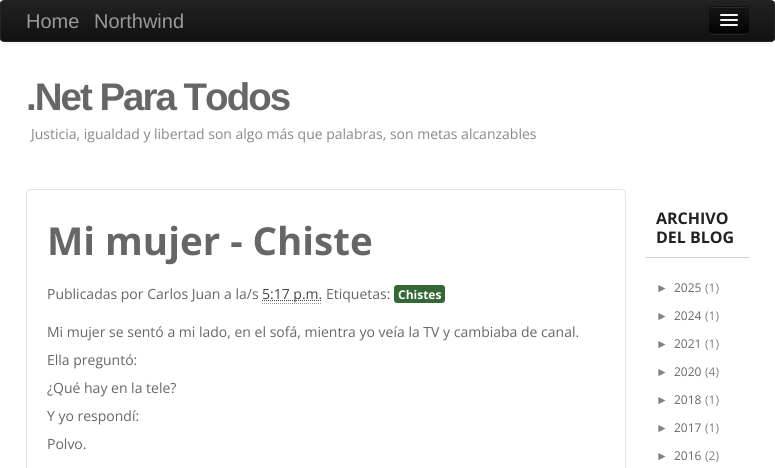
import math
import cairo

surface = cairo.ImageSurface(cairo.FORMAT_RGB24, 775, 468)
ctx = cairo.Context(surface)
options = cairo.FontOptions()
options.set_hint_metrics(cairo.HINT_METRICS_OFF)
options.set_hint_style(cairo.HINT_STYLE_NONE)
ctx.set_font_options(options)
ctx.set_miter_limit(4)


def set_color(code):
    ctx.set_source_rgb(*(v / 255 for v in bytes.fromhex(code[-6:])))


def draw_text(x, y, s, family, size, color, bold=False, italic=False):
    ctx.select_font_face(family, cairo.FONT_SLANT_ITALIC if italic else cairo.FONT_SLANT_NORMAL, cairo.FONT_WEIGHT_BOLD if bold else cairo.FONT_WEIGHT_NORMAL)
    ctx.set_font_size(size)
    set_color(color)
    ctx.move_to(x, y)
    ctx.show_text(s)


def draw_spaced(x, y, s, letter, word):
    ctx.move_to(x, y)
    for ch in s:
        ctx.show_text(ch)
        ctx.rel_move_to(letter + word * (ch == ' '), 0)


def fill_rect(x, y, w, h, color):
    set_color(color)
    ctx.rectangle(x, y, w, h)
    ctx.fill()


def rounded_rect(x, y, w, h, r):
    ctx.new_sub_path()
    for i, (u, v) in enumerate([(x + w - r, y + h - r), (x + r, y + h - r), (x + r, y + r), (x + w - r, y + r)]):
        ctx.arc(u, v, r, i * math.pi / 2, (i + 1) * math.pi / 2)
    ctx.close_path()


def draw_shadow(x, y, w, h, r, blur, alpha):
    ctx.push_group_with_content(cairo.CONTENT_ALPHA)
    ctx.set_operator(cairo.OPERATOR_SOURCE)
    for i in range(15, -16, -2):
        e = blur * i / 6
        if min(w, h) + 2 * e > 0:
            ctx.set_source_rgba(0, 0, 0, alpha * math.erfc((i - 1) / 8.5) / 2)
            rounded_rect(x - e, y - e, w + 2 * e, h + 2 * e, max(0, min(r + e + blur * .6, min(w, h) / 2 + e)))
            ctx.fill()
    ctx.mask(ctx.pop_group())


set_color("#ffffff")
ctx.paint()
set_color("#000000")
draw_shadow(0, 1, 775, 42, 4, 2, 0.07)
ctx.save()
rounded_rect(0, 0, 775, 42, 4)
ctx.clip()
gradient = cairo.LinearGradient(388, 1, 388, 41)
gradient.add_color_stop_rgba(0, 0.133, 0.133, 0.133, 1)
gradient.add_color_stop_rgba(1, 0.067, 0.067, 0.067, 1)
ctx.set_source(gradient)
ctx.rectangle(0, 1, 775, 40)
ctx.fill()
ctx.restore()
rounded_rect(0.5, 0.5, 774, 41, 3.5)
set_color("#252525")
ctx.set_line_width(1)
ctx.stroke()
draw_text(26, 28, "Home", "Liberation Sans", 20, "#999999")
draw_text(94, 28, "Northwind", "Liberation Sans", 20, "#999999")
set_color("#262626")
ctx.new_path()
ctx.move_to(709, 30)
ctx.curve_to(709, 36, 714, 35, 718, 35)
ctx.line_to(740, 35)
ctx.curve_to(744, 35, 749, 36, 749, 30)
ctx.curve_to(749, 32, 747, 34, 745, 34)
ctx.line_to(713, 34)
ctx.curve_to(711, 34, 709, 32, 709, 30)
ctx.close_path()
ctx.fill()
set_color("#0e0e0e")
rounded_rect(709, 6, 40, 28, 4)
ctx.fill()
ctx.save()
rounded_rect(709, 6, 40, 28, 4)
ctx.clip()
gradient = cairo.LinearGradient(729, 7, 729, 33)
gradient.add_color_stop_rgba(0, 0.082, 0.082, 0.082, 1)
gradient.add_color_stop_rgba(1, 0.016, 0.016, 0.016, 1)
ctx.set_source(gradient)
ctx.rectangle(709, 7, 40, 26)
ctx.fill()
ctx.restore()
set_color("#2c2c2c")
ctx.new_path()
ctx.move_to(713, 8)
ctx.line_to(745, 8)
ctx.curve_to(747, 8, 748, 9, 748, 11)
ctx.curve_to(748, 6, 744, 7, 739.5, 7)
ctx.line_to(718.5, 7)
ctx.curve_to(714, 7, 710, 6, 710, 11)
ctx.curve_to(710, 9, 711, 8, 713, 8)
ctx.close_path()
ctx.fill()
ctx.new_path()
ctx.move_to(747.5, 32.5)
ctx.curve_to(747, 33, 746, 33.5, 745, 33.5)
ctx.line_to(713, 33.5)
ctx.curve_to(712, 33.5, 711, 33, 710.5, 32.5)
ctx.set_source_rgba(0, 0, 0, 0.25)
ctx.stroke()
set_color("#0b0b0b")
ctx.new_path()
ctx.move_to(720, 15.5)
ctx.curve_to(719, 17.5, 723.5, 17, 723.5, 17)
ctx.line_to(734.5, 17)
ctx.curve_to(734.5, 17, 739, 17.5, 738, 15.5)
ctx.curve_to(737, 16.5, 730.5, 16, 729, 16)
ctx.curve_to(727.5, 16, 721, 16.5, 720, 15.5)
ctx.close_path()
ctx.fill()
set_color("#f5f5f5")
rounded_rect(720, 14, 18, 2, 1)
ctx.fill()
set_color("#090909")
ctx.new_path()
ctx.move_to(720, 20.5)
ctx.curve_to(719, 22.5, 723.5, 22, 723.5, 22)
ctx.line_to(734.5, 22)
ctx.curve_to(734.5, 22, 739, 22.5, 738, 20.5)
ctx.curve_to(737, 21.5, 730.5, 21, 729, 21)
ctx.curve_to(727.5, 21, 721, 21.5, 720, 20.5)
ctx.close_path()
ctx.fill()
set_color("#f5f5f5")
rounded_rect(720, 19, 18, 2, 1)
ctx.fill()
rounded_rect(720, 24, 18, 2, 1)
ctx.fill()
ctx.select_font_face("Liberation Sans", cairo.FONT_SLANT_NORMAL, cairo.FONT_WEIGHT_BOLD)
ctx.set_font_size(38.5)
set_color("#666666")
draw_spaced(26, 110, ".Net Para Todos", -2, 0)
draw_text(31, 139, "Justicia, igualdad y libertad son algo más que palabras, son metas alcanzables", "Open Sans", 14, "#888888")
rounded_rect(26.5, 189.5, 599, 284, 4.5)
set_color("#e3e3e3")
ctx.stroke()
draw_text(47, 255, "Mi mujer - Chiste", "Open Sans", 38.5, "#666666", bold=True)
draw_text(47, 299, "Publicadas por Carlos Juan a la/s", "Open Sans", 14, "#666666")
ctx.new_path()
ctx.move_to(262, 300.5)
ctx.line_to(322, 300.5)
set_color("#464646")
ctx.set_dash([1, 1])
ctx.stroke()
draw_text(262, 299, "5:17 p.m.", "Open Sans", 14, "#464646")
ctx.new_path()
ctx.move_to(262, 303.5)
ctx.line_to(322, 303.5)
set_color("#999999")
ctx.stroke()
draw_text(326, 299, "Etiquetas:", "Open Sans", 14, "#666666")
set_color("#356635")
rounded_rect(394, 285, 51, 18, 3)
ctx.fill()
draw_text(398, 299, "Chistes", "Open Sans", 12, "#ffffff", bold=True)
draw_text(47, 337, "Mi mujer se sentó a mi lado, en el sofá, mientra yo veía la TV y cambiaba de canal.", "Open Sans", 14, "#666666")
draw_text(47, 365, "Ella preguntó:", "Open Sans", 14, "#666666")
draw_text(47, 393, "¿Qué hay en la tele?", "Open Sans", 14, "#666666")
draw_text(47, 421, "Y yo respondí:", "Open Sans", 14, "#666666")
draw_text(47, 449, "Polvo.", "Open Sans", 14, "#666666")
fill_rect(646, 257, 104, 1, "#d3d3d3")
draw_text(656, 224, "ARCHIVO", "Open Sans", 16, "#222222", bold=True)
draw_text(656, 243, "DEL BLOG", "Open Sans", 16, "#222222", bold=True)
draw_text(656, 292, "►", "Liberation Sans", 12, "#808080")
draw_text(674, 292, "2025", "Open Sans", 12, "#666666")
draw_text(705, 292, "(1)", "Open Sans", 12, "#808080")
draw_text(656, 320, "►", "Liberation Sans", 12, "#808080")
draw_text(674, 320, "2024", "Open Sans", 12, "#666666")
draw_text(705, 320, "(1)", "Open Sans", 12, "#808080")
draw_text(656, 348, "►", "Liberation Sans", 12, "#808080")
draw_text(674, 348, "2021", "Open Sans", 12, "#666666")
draw_text(705, 348, "(1)", "Open Sans", 12, "#808080")
draw_text(656, 376, "►", "Liberation Sans", 12, "#808080")
draw_text(674, 376, "2020", "Open Sans", 12, "#666666")
draw_text(705, 376, "(4)", "Open Sans", 12, "#808080")
draw_text(656, 404, "►", "Liberation Sans", 12, "#808080")
draw_text(674, 404, "2018", "Open Sans", 12, "#666666")
draw_text(705, 404, "(1)", "Open Sans", 12, "#808080")
draw_text(656, 432, "►", "Liberation Sans", 12, "#808080")
draw_text(674, 432, "2017", "Open Sans", 12, "#666666")
draw_text(705, 432, "(1)", "Open Sans", 12, "#808080")
draw_text(656, 460, "►", "Liberation Sans", 12, "#808080")
draw_text(674, 460, "2016", "Open Sans", 12, "#666666")
draw_text(705, 460, "(2)", "Open Sans", 12, "#808080")
surface.write_to_png("output.png")
